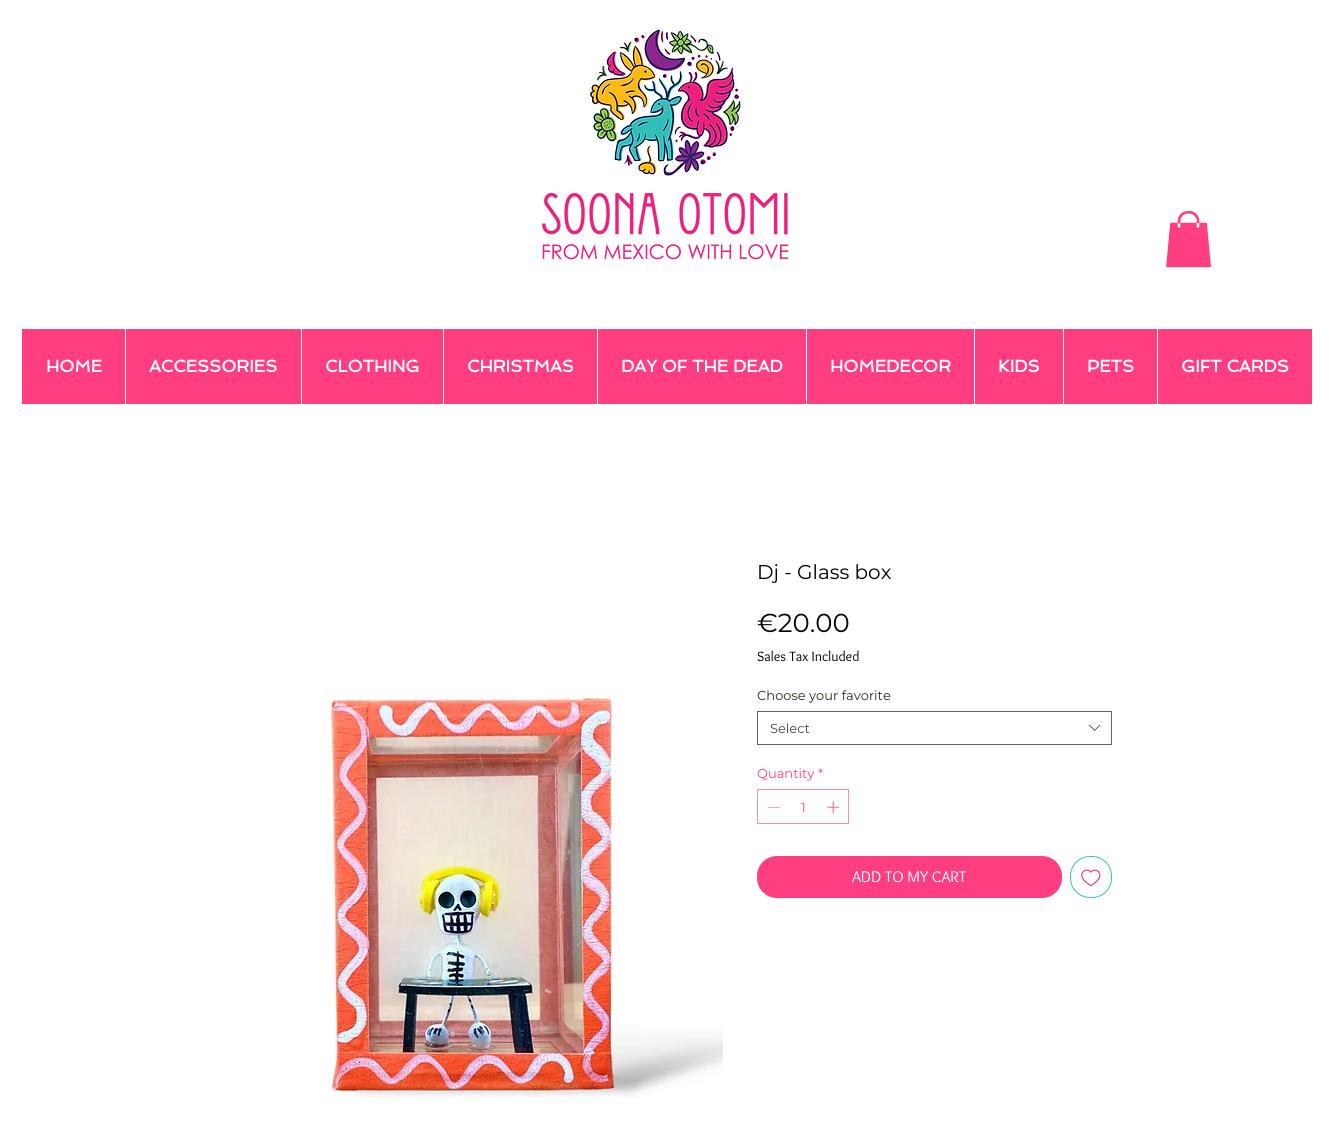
import math
import cairo

surface = cairo.ImageSurface(cairo.FORMAT_RGB24, 1334, 1147)
ctx = cairo.Context(surface)
options = cairo.FontOptions()
options.set_hint_metrics(cairo.HINT_METRICS_OFF)
options.set_hint_style(cairo.HINT_STYLE_NONE)
ctx.set_font_options(options)
ctx.set_miter_limit(4)


def set_color(code):
    ctx.set_source_rgb(*(v / 255 for v in bytes.fromhex(code[-6:])))


def draw_text(x, y, s, family, size, color, bold=False, italic=False):
    ctx.select_font_face(family, cairo.FONT_SLANT_ITALIC if italic else cairo.FONT_SLANT_NORMAL, cairo.FONT_WEIGHT_BOLD if bold else cairo.FONT_WEIGHT_NORMAL)
    ctx.set_font_size(size)
    set_color(color)
    ctx.move_to(x, y)
    ctx.show_text(s)


def fill_rect(x, y, w, h, color):
    set_color(color)
    ctx.rectangle(x, y, w, h)
    ctx.fill()


def rounded_rect(x, y, w, h, r):
    ctx.new_sub_path()
    for i, (u, v) in enumerate([(x + w - r, y + h - r), (x + r, y + h - r), (x + r, y + r), (x + w - r, y + r)]):
        ctx.arc(u, v, r, i * math.pi / 2, (i + 1) * math.pi / 2)
    ctx.close_path()


def draw_image(path, x, y, w, h):
    ctx.save()
    ctx.set_source_surface(cairo.ImageSurface.create_from_png(path), x, y)
    ctx.rectangle(x, y, w, h)
    ctx.fill()
    ctx.restore()


set_color("#ffffff")
ctx.paint()
draw_image("assets/img1.png", 542, 29, 247, 231)
draw_image("assets/img2.png", 1166, 211, 45, 57)
fill_rect(22, 329, 1290, 75, "#ff3d81")
draw_text(46, 372, "HOME", "Spinnaker", 17, "#ffffff", bold=True)
fill_rect(125, 329, 1, 75, "#ffffff")
draw_text(149, 372, "ACCESSORIES", "Spinnaker", 17, "#ffffff", bold=True)
fill_rect(301, 329, 1, 75, "#ffffff")
draw_text(325, 372, "CLOTHING", "Spinnaker", 17, "#ffffff", bold=True)
fill_rect(443, 329, 1, 75, "#ffffff")
draw_text(467, 372, "CHRISTMAS", "Spinnaker", 17, "#ffffff", bold=True)
fill_rect(597, 329, 1, 75, "#ffffff")
draw_text(621, 372, "DAY OF THE DEAD", "Spinnaker", 17, "#ffffff", bold=True)
fill_rect(806, 329, 1, 75, "#ffffff")
draw_text(830, 372, "HOMEDECOR", "Spinnaker", 17, "#ffffff", bold=True)
fill_rect(974, 329, 1, 75, "#ffffff")
draw_text(998, 372, "KIDS", "Spinnaker", 17, "#ffffff", bold=True)
fill_rect(1063, 329, 1, 75, "#ffffff")
draw_text(1087, 372, "PETS", "Spinnaker", 17, "#ffffff", bold=True)
fill_rect(1157, 329, 1, 75, "#ffffff")
draw_text(1181, 372, "GIFT CARDS", "Spinnaker", 17, "#ffffff", bold=True)
draw_image("assets/img3.png", 327, 697, 396, 401)
draw_text(757, 579, "Dj - Glass box", "Montserrat", 20, "#000000")
draw_text(757, 632, "€20.00", "Montserrat", 26, "#000000")
draw_text(757, 661, "Sales Tax Included", "Overlock", 14, "#000000")
draw_text(757, 700, "Choose your favorite", "Montserrat", 13, "#2d271d")
ctx.rectangle(757.5, 711.5, 354, 33)
set_color("#666666")
ctx.set_line_width(1)
ctx.stroke()
draw_text(770, 733, "Select", "Montserrat", 13, "#444444")
draw_image("assets/img4.png", 1089, 724, 12, 7)
draw_text(757, 778, "Quantity", "Montserrat", 13, "#ff3d81")
draw_text(818, 778, "*", "Montserrat", 13, "#ff3d81")
ctx.rectangle(757.5, 789.5, 91, 34)
set_color("#ff8bb3")
ctx.stroke()
set_color("#ff3d81")
ctx.set_fill_rule(cairo.FILL_RULE_EVEN_ODD)
ctx.new_path()
ctx.move_to(780, 807)
ctx.line_to(780, 807.5)
ctx.line_to(768, 807.5)
ctx.line_to(768, 807)
ctx.close_path()
ctx.fill()
draw_text(801, 812, "1", "Montserrat", 13, "#ff3d81")
draw_image("assets/img5.png", 827, 801, 13, 13)
rounded_rect(757, 856, 305, 42, 20)
ctx.fill()
draw_text(852, 882, "ADD TO MY CART", "Overlock", 16, "#ffffff")
rounded_rect(1070.5, 856.5, 41, 41, 19.5)
set_color("#3ebfb9")
ctx.stroke()
draw_image("assets/img6.png", 1081, 869, 20, 17)
surface.write_to_png("output.png")
